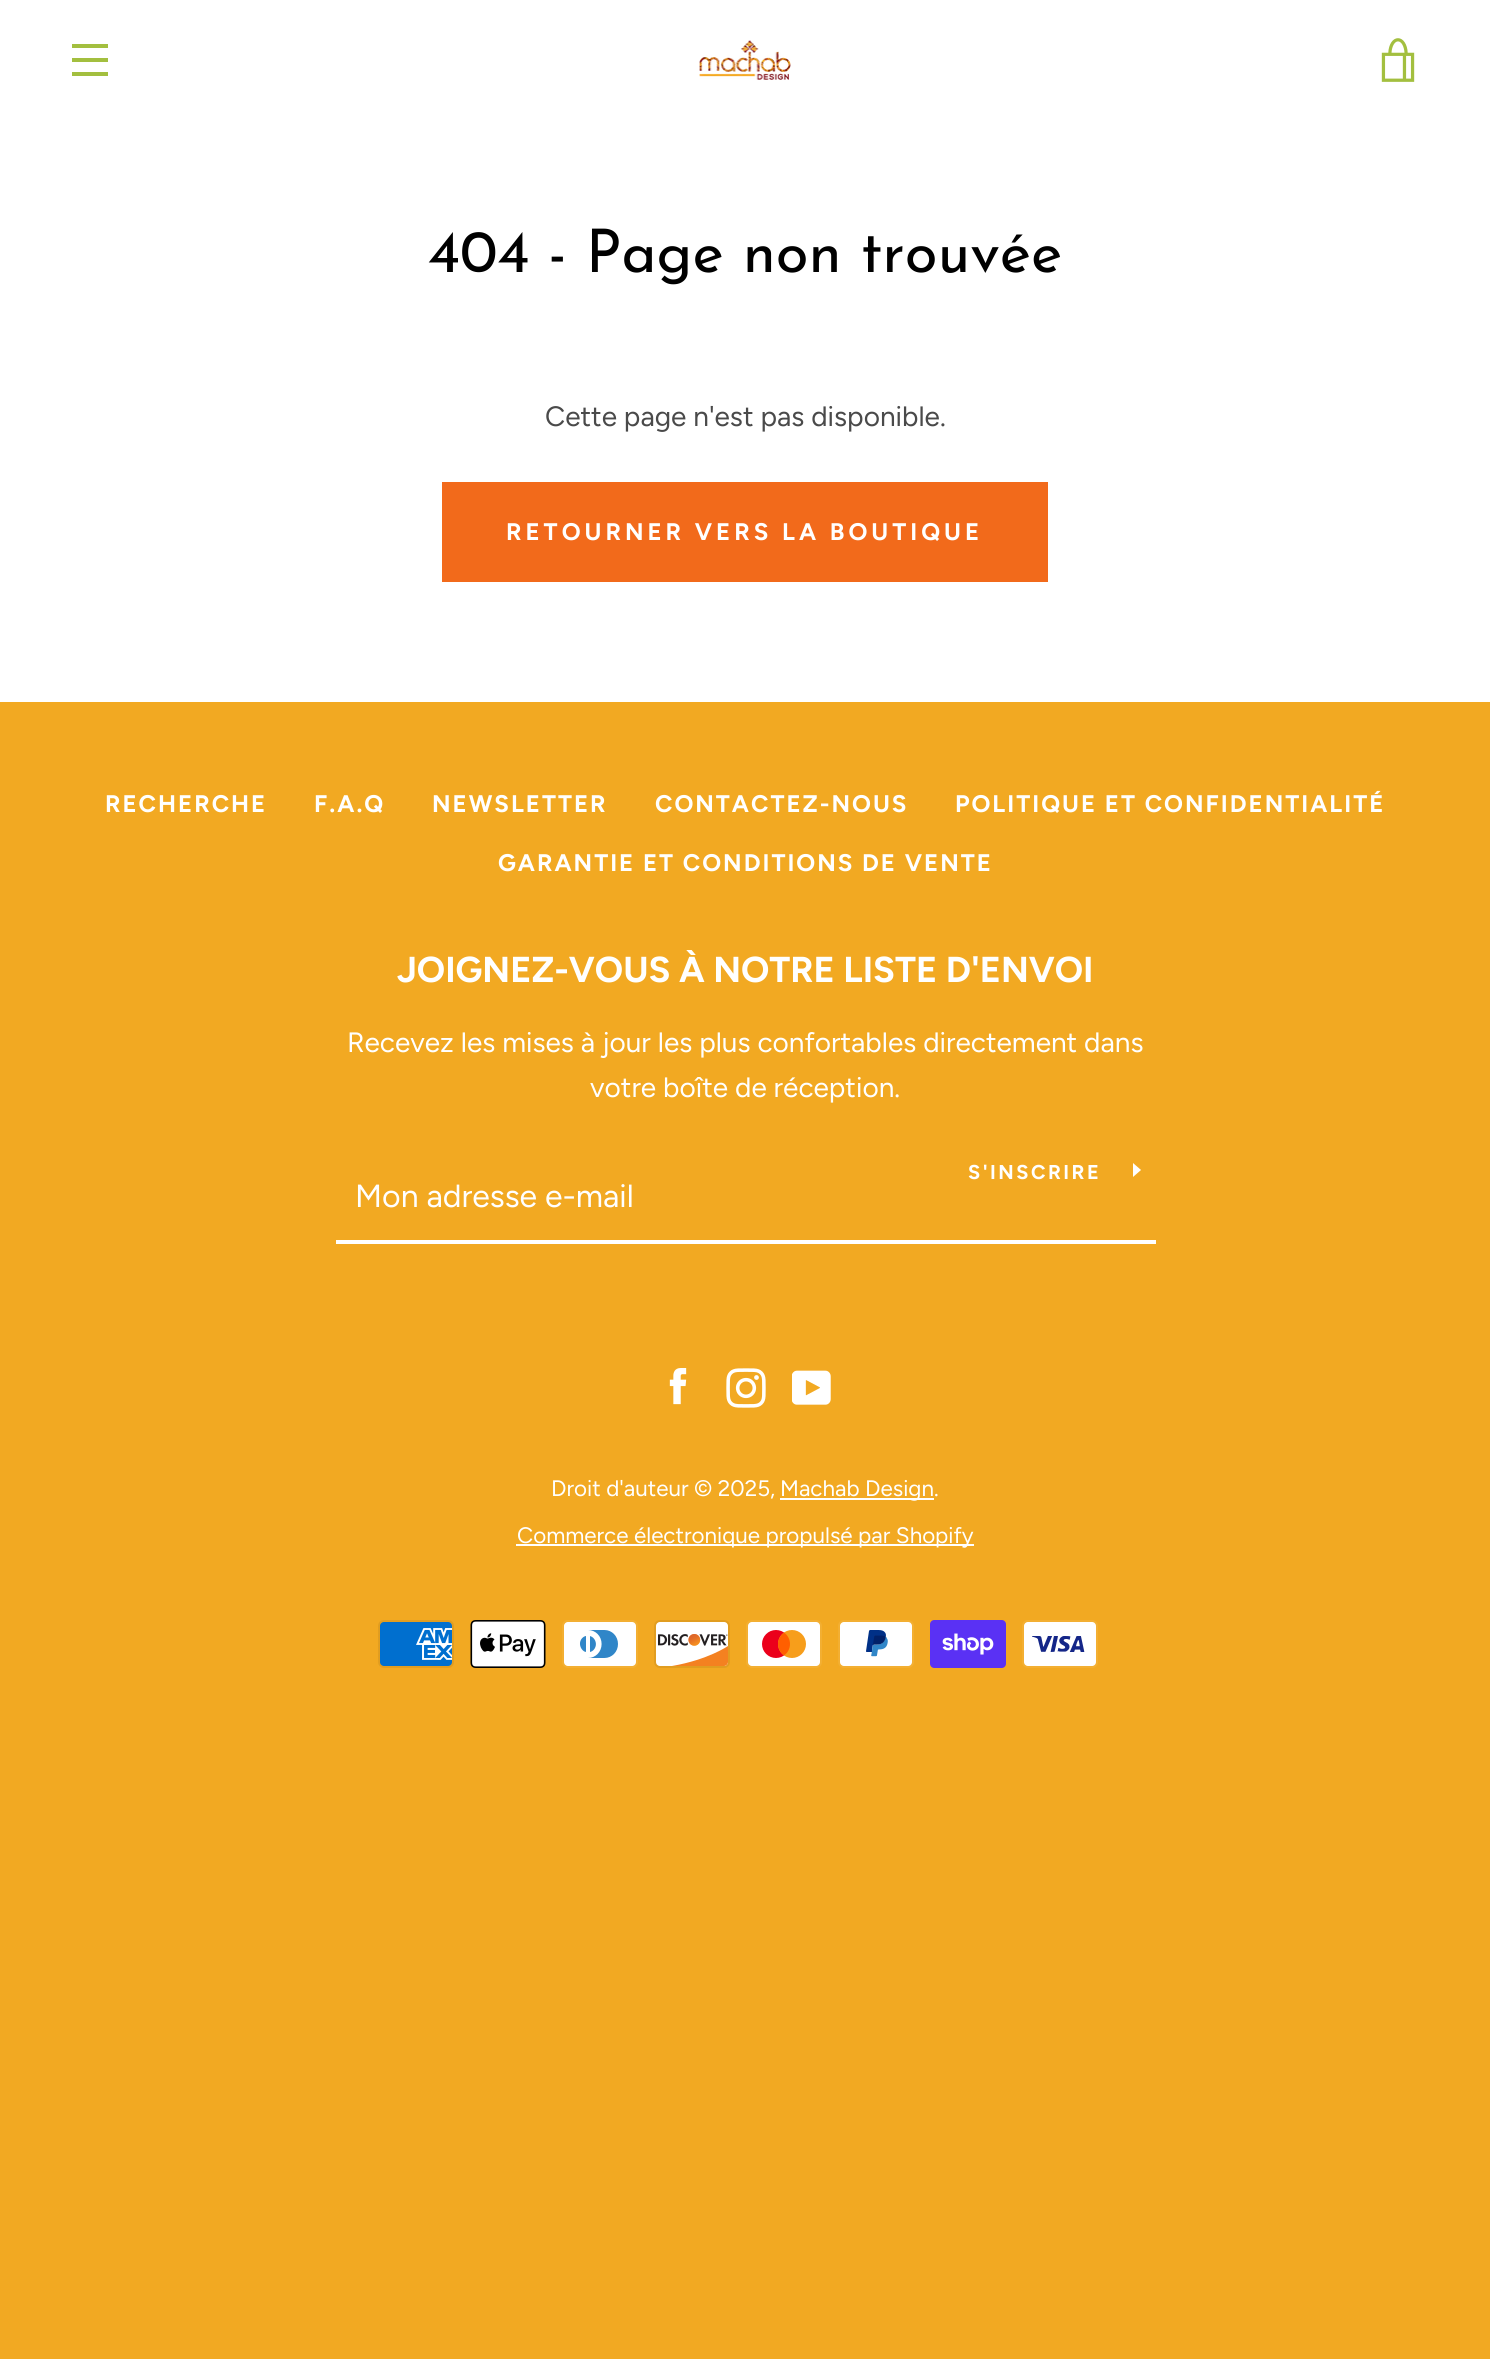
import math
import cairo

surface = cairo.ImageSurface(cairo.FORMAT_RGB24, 1490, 2359)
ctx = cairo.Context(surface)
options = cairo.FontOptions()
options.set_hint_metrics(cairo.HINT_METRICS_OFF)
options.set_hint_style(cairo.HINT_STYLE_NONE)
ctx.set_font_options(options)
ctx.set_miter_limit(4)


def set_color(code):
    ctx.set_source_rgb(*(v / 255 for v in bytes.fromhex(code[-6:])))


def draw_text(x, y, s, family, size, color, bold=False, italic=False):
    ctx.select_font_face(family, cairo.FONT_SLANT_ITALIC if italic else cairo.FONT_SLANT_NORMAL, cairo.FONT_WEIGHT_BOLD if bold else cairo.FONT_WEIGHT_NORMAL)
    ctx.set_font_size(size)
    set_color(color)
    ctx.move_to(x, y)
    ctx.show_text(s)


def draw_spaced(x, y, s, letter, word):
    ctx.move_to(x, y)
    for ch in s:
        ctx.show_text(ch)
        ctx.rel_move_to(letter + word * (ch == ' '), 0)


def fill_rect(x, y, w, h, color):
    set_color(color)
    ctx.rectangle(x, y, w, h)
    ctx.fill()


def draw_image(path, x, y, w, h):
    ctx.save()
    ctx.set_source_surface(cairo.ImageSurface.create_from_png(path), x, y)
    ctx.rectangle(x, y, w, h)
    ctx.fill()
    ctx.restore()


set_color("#f2a922")
ctx.paint()
fill_rect(0, 0, 1490, 702, "#ffffff")
fill_rect(72, 44, 36, 4, "#a3bf3f")
fill_rect(72, 58, 36, 4, "#a3bf3f")
fill_rect(72, 72, 36, 4, "#a3bf3f")
draw_image("assets/img1.png", 699, 40, 92, 40)
draw_image("assets/img2.png", 1381, 38, 34, 44)
draw_text(428, 272, "404 - Page non trouvée", "Josefin Sans", 60, "#000000")
draw_text(545, 426, "Cette page n'est pas disponible.", "Figtree", 28, "#4a4a4a")
fill_rect(442, 482, 606, 100, "#f26a1b")
ctx.select_font_face("Figtree", cairo.FONT_SLANT_NORMAL, cairo.FONT_WEIGHT_BOLD)
ctx.set_font_size(24)
set_color("#ffffff")
draw_spaced(506, 540, "RETOURNER VERS LA BOUTIQUE", 4, 0)
draw_spaced(105, 812, "RECHERCHE", 2, 0)
draw_spaced(314, 812, "F.A.Q", 2, 0)
draw_spaced(432, 812, "NEWSLETTER", 2, 0)
draw_spaced(655, 812, "CONTACTEZ-NOUS", 2, 0)
draw_spaced(955, 812, "POLITIQUE ET CONFIDENTIALITÉ", 2, 0)
draw_spaced(498, 871, "GARANTIE ET CONDITIONS DE VENTE", 2, 0)
draw_text(397, 982, "JOIGNEZ-VOUS À NOTRE LISTE D'ENVOI", "Figtree", 36, "#ffffff", bold=True)
draw_text(347, 1052, "Recevez les mises à jour les plus confortables directement dans", "Figtree", 28, "#ffffff")
draw_text(590, 1097, "votre boîte de réception.", "Figtree", 28, "#ffffff")
fill_rect(336, 1240, 820, 4, "#ffffff")
ctx.select_font_face("Figtree", cairo.FONT_SLANT_NORMAL, cairo.FONT_WEIGHT_BOLD)
ctx.set_font_size(20)
draw_spaced(968, 1179, "S'INSCRIRE", 2.5, 0)
ctx.new_path()
ctx.move_to(1141, 1170)
ctx.line_to(1133, 1177)
ctx.line_to(1133, 1163)
ctx.close_path()
ctx.fill()
draw_text(355, 1207, "Mon adresse e-mail", "Figtree", 32, "#ffffff")
draw_image("assets/img3.png", 669, 1368, 18, 37)
draw_image("assets/img4.png", 726, 1368, 40, 40)
draw_image("assets/img5.png", 792, 1370, 39, 35)
draw_text(551, 1496, "Droit d'auteur © 2025,", "Figtree", 22.4, "#ffffff")
fill_rect(780, 1498, 154, 2, "#ffffff")
draw_text(780, 1496, "Machab Design.", "Figtree", 22.4, "#ffffff")
fill_rect(516, 1544, 458, 2, "#ffffff")
draw_text(517, 1543, "Commerce électronique propulsé par Shopify", "Figtree", 22.4, "#ffffff")
draw_image("assets/img6.png", 378, 1620, 76, 48)
draw_image("assets/img7.png", 470, 1620, 76, 48)
draw_image("assets/img8.png", 562, 1620, 76, 48)
draw_image("assets/img9.png", 654, 1620, 76, 48)
draw_image("assets/img10.png", 746, 1620, 76, 48)
draw_image("assets/img11.png", 838, 1620, 76, 48)
draw_image("assets/img12.png", 930, 1620, 76, 48)
draw_image("assets/img13.png", 1022, 1620, 76, 48)
surface.write_to_png("output.png")
